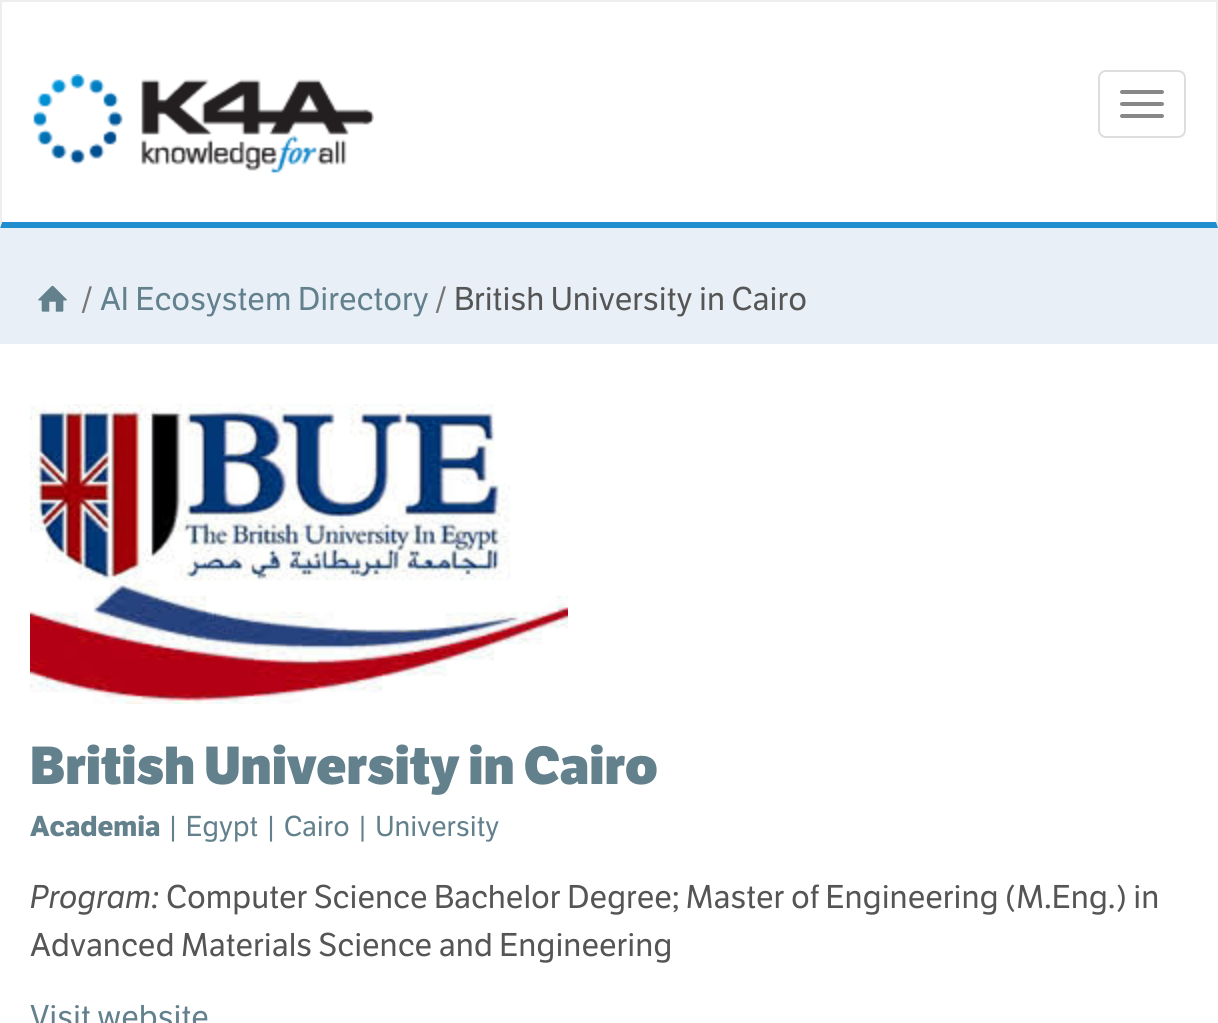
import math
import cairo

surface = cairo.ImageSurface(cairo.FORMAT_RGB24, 1218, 1023)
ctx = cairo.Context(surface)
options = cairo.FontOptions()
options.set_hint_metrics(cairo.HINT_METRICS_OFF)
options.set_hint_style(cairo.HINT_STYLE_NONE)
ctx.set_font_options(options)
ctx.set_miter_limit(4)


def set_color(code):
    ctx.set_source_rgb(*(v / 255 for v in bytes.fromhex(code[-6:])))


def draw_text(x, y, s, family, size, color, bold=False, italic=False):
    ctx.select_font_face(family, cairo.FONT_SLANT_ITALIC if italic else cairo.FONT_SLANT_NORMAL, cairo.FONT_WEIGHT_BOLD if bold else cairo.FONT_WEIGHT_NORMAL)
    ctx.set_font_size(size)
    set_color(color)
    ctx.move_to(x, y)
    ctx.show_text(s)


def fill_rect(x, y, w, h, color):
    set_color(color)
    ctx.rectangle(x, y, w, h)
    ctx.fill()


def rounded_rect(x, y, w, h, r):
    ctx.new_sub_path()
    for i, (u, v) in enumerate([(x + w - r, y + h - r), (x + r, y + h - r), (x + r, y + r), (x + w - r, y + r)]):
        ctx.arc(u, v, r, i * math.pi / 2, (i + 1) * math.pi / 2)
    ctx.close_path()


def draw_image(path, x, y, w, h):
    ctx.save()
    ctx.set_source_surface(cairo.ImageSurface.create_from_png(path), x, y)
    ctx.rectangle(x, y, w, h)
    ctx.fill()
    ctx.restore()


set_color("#e8eff6")
ctx.paint()
fill_rect(2, 2, 1214, 220, "#ffffff")
fill_rect(0, 0, 1218, 2, "#eeeeee")
ctx.new_path()
ctx.move_to(1218, 0)
ctx.line_to(1218, 228)
ctx.line_to(1216, 222)
ctx.line_to(1216, 2)
ctx.close_path()
ctx.fill()
set_color("#208dcf")
ctx.new_path()
ctx.move_to(1218, 228)
ctx.line_to(0, 228)
ctx.line_to(2, 222)
ctx.line_to(1216, 222)
ctx.close_path()
ctx.fill()
set_color("#eeeeee")
ctx.new_path()
ctx.move_to(0, 228)
ctx.line_to(0, 0)
ctx.line_to(2, 2)
ctx.line_to(2, 222)
ctx.close_path()
ctx.fill()
draw_image("assets/img1.png", 33, 74, 341, 100)
rounded_rect(1099, 71, 86, 66, 7)
set_color("#dddddd")
ctx.stroke()
set_color("#888888")
rounded_rect(1120, 90, 44, 4, 2)
ctx.fill()
rounded_rect(1120, 102, 44, 4, 2)
ctx.fill()
rounded_rect(1120, 114, 44, 4, 2)
ctx.fill()
draw_image("assets/img2.png", 38, 285, 29, 27)
draw_text(81, 310, "/", "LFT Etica", 32, "#777777")
draw_text(100, 310, "AI Ecosystem Directory", "LFT Etica", 32, "#63808d")
draw_text(435, 310, "/", "LFT Etica", 32, "#777777")
draw_text(454, 310, "British University in Cairo", "LFT Etica", 32, "#555555")
fill_rect(0, 344, 1218, 679, "#ffffff")
draw_image("assets/img3.png", 30, 404, 538, 300)
draw_text(30, 784, "British University in Cairo", "LFT Etica ExtraBold", 52, "#63808d")
draw_text(30, 836, "Academia", "LFT Etica", 28, "#63808d", bold=True)
draw_text(166, 836, "| Egypt | Cairo | University", "LFT Etica", 28, "#63808d")
draw_text(30, 908, "Program:", "LFT Etica", 32, "#555555", italic=True)
draw_text(166, 908, "Computer Science Bachelor Degree; Master of Engineering (M.Eng.) in", "LFT Etica", 32, "#555555")
draw_text(30, 956, "Advanced Materials Science and Engineering", "LFT Etica", 32, "#555555")
draw_text(30, 1028, "Visit website", "LFT Etica", 32, "#63808d")
surface.write_to_png("output.png")
